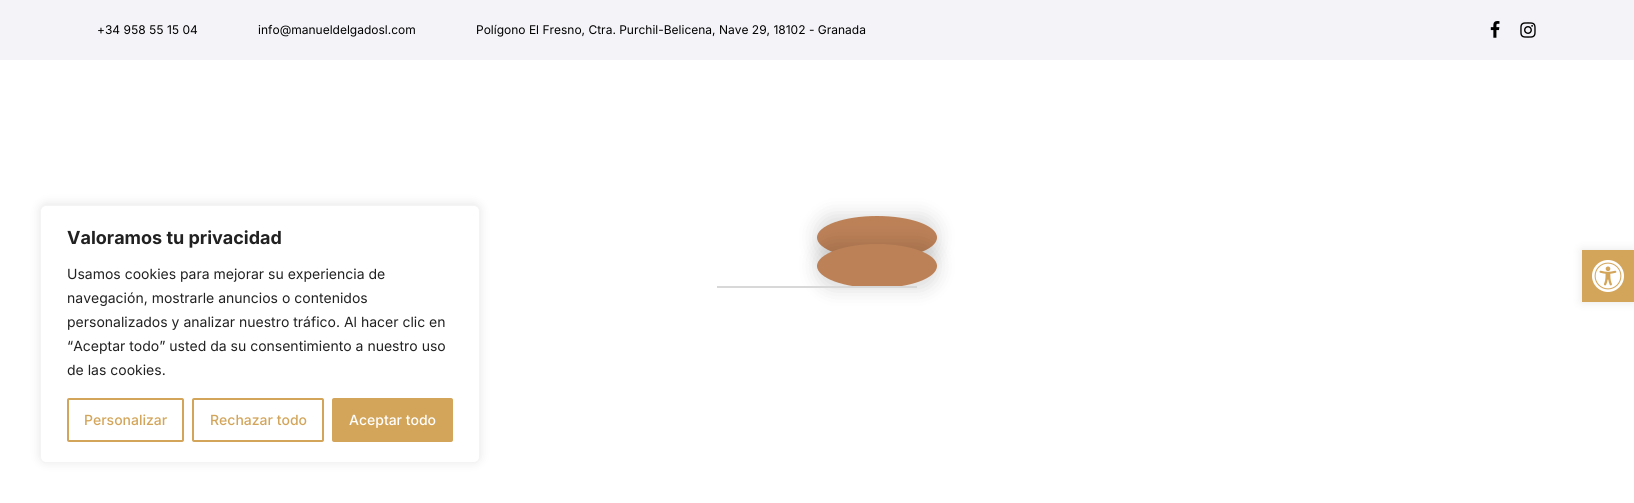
import math
import cairo

surface = cairo.ImageSurface(cairo.FORMAT_RGB24, 1634, 503)
ctx = cairo.Context(surface)
options = cairo.FontOptions()
options.set_hint_metrics(cairo.HINT_METRICS_OFF)
options.set_hint_style(cairo.HINT_STYLE_NONE)
ctx.set_font_options(options)
ctx.set_miter_limit(4)


def set_color(code):
    ctx.set_source_rgb(*(v / 255 for v in bytes.fromhex(code[-6:])))


def draw_text(x, y, s, family, size, color, bold=False, italic=False):
    ctx.select_font_face(family, cairo.FONT_SLANT_ITALIC if italic else cairo.FONT_SLANT_NORMAL, cairo.FONT_WEIGHT_BOLD if bold else cairo.FONT_WEIGHT_NORMAL)
    ctx.set_font_size(size)
    set_color(color)
    ctx.move_to(x, y)
    ctx.show_text(s)


def fill_rect(x, y, w, h, color):
    set_color(color)
    ctx.rectangle(x, y, w, h)
    ctx.fill()


def rounded_rect(x, y, w, h, r):
    ctx.new_sub_path()
    for i, (u, v) in enumerate([(x + w - r, y + h - r), (x + r, y + h - r), (x + r, y + r), (x + w - r, y + r)]):
        ctx.arc(u, v, r, i * math.pi / 2, (i + 1) * math.pi / 2)
    ctx.close_path()


def draw_shadow(x, y, w, h, r, blur, alpha):
    ctx.push_group_with_content(cairo.CONTENT_ALPHA)
    ctx.set_operator(cairo.OPERATOR_SOURCE)
    for i in range(15, -16, -2):
        e = blur * i / 6
        if min(w, h) + 2 * e > 0:
            ctx.set_source_rgba(0, 0, 0, alpha * math.erfc((i - 1) / 8.5) / 2)
            rounded_rect(x - e, y - e, w + 2 * e, h + 2 * e, max(0, min(r + e + blur * .6, min(w, h) / 2 + e)))
            ctx.fill()
    ctx.mask(ctx.pop_group())


def draw_image(path, x, y, w, h):
    ctx.save()
    ctx.set_source_surface(cairo.ImageSurface.create_from_png(path), x, y)
    ctx.rectangle(x, y, w, h)
    ctx.fill()
    ctx.restore()


set_color("#ffffff")
ctx.paint()
fill_rect(0, 0, 1634, 60, "#f4f3f8")
draw_text(97, 34, "+34 958 55 15 04", "Inter", 12, "#000000")
draw_text(258, 34, "info@manueldelgadosl.com", "Inter", 12, "#000000")
draw_text(476, 34, "Polígono El Fresno, Ctra. Purchil-Belicena, Nave 29, 18102 - Granada", "Inter", 12, "#000000")
draw_image("assets/img1.png", 1490, 21, 10, 17)
draw_image("assets/img2.png", 1520, 22, 16, 16)
set_color("#acabab")
draw_shadow(40, 204, 440, 258, 6, 5, 0.3)
set_color("#ffffff")
rounded_rect(40.5, 205.5, 439, 257, 5.5)
ctx.fill_preserve()
set_color("#f4f4f4")
ctx.set_line_width(1)
ctx.stroke()
draw_text(67, 244, "Valoramos tu privacidad", "Inter", 18, "#212121", bold=True)
draw_text(67, 279, "Usamos cookies para mejorar su experiencia de", "Inter", 14, "#212121")
draw_text(67, 303, "navegación, mostrarle anuncios o contenidos", "Inter", 14, "#212121")
draw_text(67, 327, "personalizados y analizar nuestro tráfico. Al hacer clic en", "Inter", 14, "#212121")
draw_text(67, 351, "“Aceptar todo” usted da su consentimiento a nuestro uso", "Inter", 14, "#212121")
draw_text(67, 375, "de las cookies.", "Inter", 14, "#212121")
rounded_rect(68, 399, 115, 42, 1)
set_color("#d3a55a")
ctx.set_line_width(2)
ctx.stroke()
draw_text(84, 425, "Personalizar", "Inter Medium", 14, "#d3a55a")
rounded_rect(193, 399, 130, 42, 1)
ctx.stroke()
draw_text(210, 425, "Rechazar todo", "Inter Medium", 14, "#d3a55a")
rounded_rect(333, 399, 119, 42, 1)
ctx.fill_preserve()
ctx.stroke()
draw_text(349, 425, "Aceptar todo", "Inter Medium", 14, "#ffffff")
set_color("#000000")
draw_shadow(817, 216, 120, 43, 21.5, 10, 0.15)
set_color("#bc8157")
ctx.new_path()
ctx.move_to(877, 216)
ctx.curve_to(910, 216, 937, 225.5, 937, 237.5)
ctx.curve_to(937, 249.5, 910, 259, 877, 259)
ctx.curve_to(844, 259, 817, 249.5, 817, 237.5)
ctx.curve_to(817, 225.5, 844, 216, 877, 216)
ctx.close_path()
ctx.fill()
set_color("#000000")
draw_shadow(817, 244, 120, 44, 22, 10, 0.15)
set_color("#bc8157")
ctx.new_path()
ctx.move_to(877, 244)
ctx.curve_to(910, 244, 937, 254, 937, 266)
ctx.curve_to(937, 278, 910, 288, 877, 288)
ctx.curve_to(844, 288, 817, 278, 817, 266)
ctx.curve_to(817, 254, 844, 244, 877, 244)
ctx.close_path()
ctx.fill()
fill_rect(717, 286, 200, 2, "#d8d8d8")
set_color("#000000")
draw_shadow(1582, 250, 52, 52, 0, 5, 0.1)
fill_rect(1582, 250, 52, 52, "#d3a55a")
draw_image("assets/img3.png", 1592, 260, 32, 32)
surface.write_to_png("output.png")
